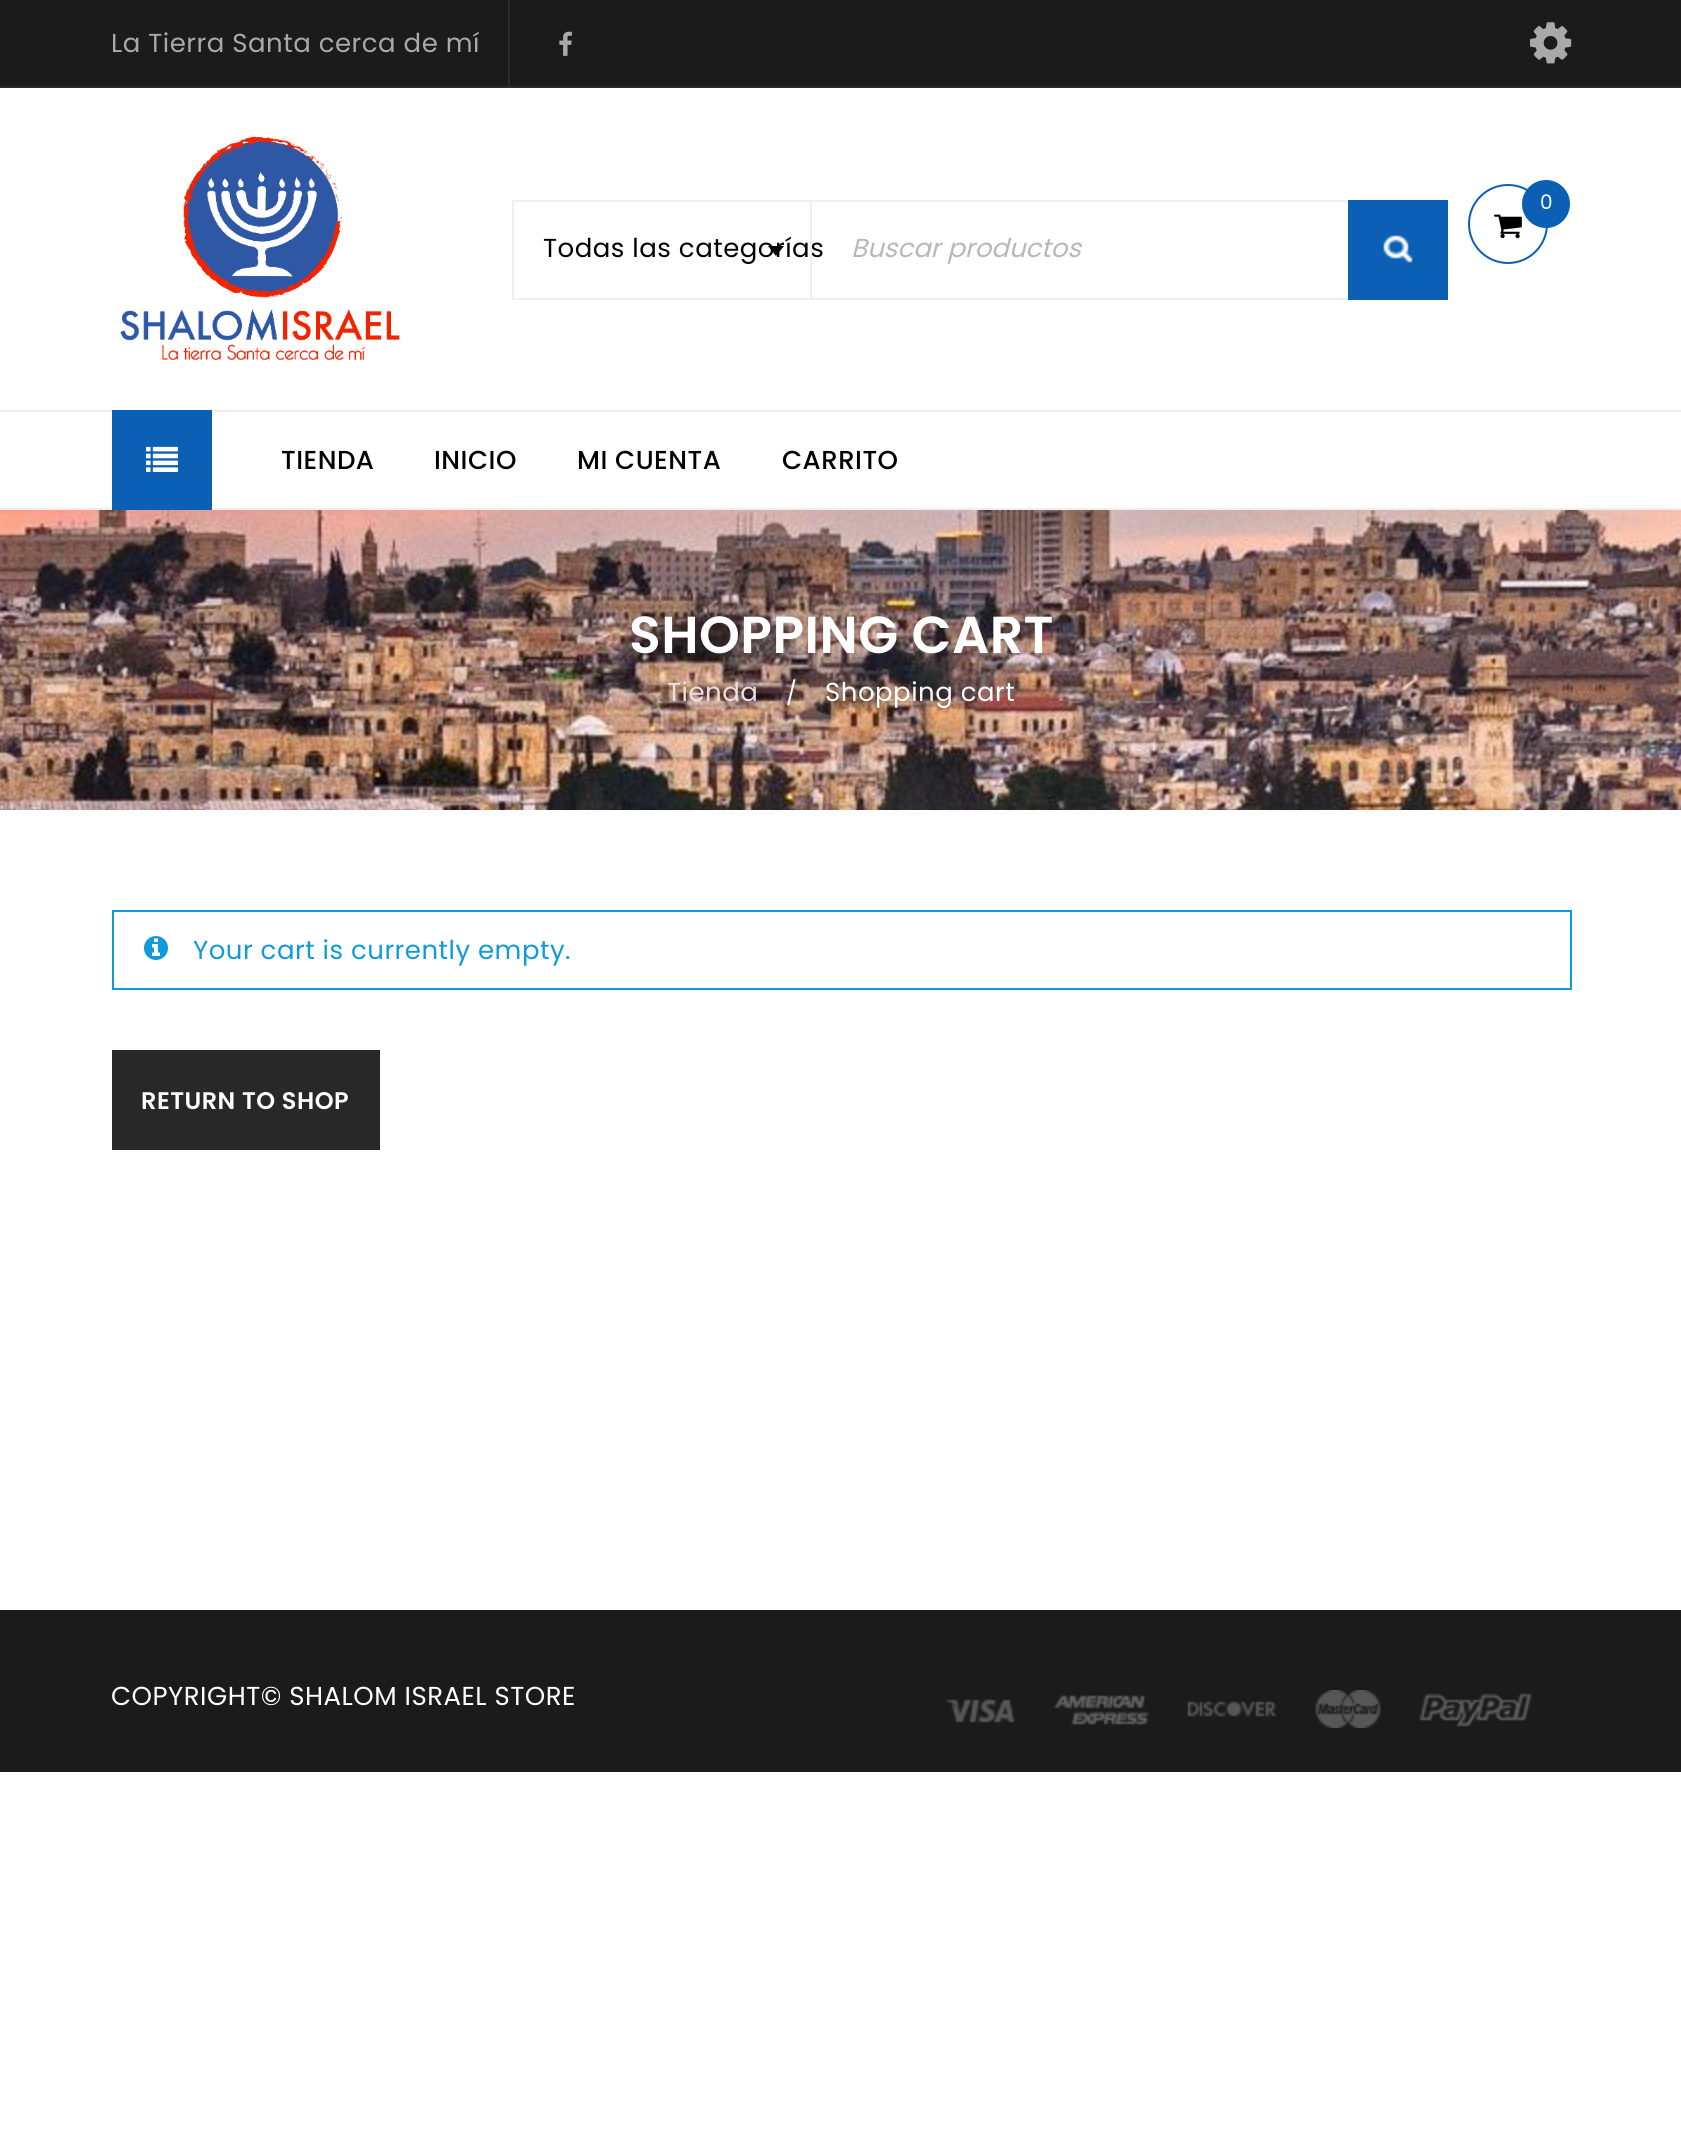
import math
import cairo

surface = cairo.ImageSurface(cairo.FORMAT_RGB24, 1681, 2150)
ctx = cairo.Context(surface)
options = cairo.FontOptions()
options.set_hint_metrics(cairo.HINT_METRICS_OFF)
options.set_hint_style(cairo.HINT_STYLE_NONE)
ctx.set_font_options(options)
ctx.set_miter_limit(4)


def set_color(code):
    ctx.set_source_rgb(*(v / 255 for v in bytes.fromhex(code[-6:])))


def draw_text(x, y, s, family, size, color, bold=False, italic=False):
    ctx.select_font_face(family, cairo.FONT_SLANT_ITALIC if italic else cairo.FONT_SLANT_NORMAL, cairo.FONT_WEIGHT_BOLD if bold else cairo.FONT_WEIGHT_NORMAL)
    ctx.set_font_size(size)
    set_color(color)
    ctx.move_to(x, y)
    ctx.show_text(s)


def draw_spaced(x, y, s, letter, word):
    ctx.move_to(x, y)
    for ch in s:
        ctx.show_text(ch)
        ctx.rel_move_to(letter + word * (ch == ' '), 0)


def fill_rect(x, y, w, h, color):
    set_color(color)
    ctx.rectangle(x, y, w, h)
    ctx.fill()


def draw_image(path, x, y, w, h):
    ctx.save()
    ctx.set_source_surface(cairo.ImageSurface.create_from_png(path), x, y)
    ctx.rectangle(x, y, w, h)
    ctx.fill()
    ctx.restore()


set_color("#ffffff")
ctx.paint()
fill_rect(0, 0, 1681, 86, "#1b1b1b")
fill_rect(0, 86, 1681, 2, "#2c2c2c")
ctx.select_font_face("Poppins")
ctx.set_font_size(26)
set_color("#a9a9a9")
draw_spaced(111, 52, "La Tierra Santa cerca de mí", 0.5, 0)
fill_rect(508, 0, 2, 88, "#2c2c2c")
draw_image("assets/img1.png", 559, 31, 13, 25)
draw_image("assets/img2.png", 1530, 22, 42, 42)
draw_image("assets/img3.png", 120, 136, 280, 224)
ctx.arc(1508, 224, 39, 0, 2 * math.pi)
set_color("#0b5fb5")
ctx.stroke()
draw_image("assets/img4.png", 1494, 214, 28, 25)
ctx.arc(1546, 204, 24, 0, 2 * math.pi)
ctx.fill()
ctx.set_font_size(20)
set_color("#ffffff")
draw_spaced(1540, 209, "0", 0.5, 0)
ctx.rectangle(513, 201, 298, 98)
set_color("#efefef")
ctx.stroke()
ctx.set_font_size(26)
set_color("#000000")
draw_spaced(543, 257, "Todas las categorías", 0.5, 0)
ctx.new_path()
ctx.move_to(768, 246)
ctx.line_to(784, 246)
ctx.line_to(776, 256)
ctx.close_path()
ctx.fill()
ctx.rectangle(811, 201, 634, 98)
set_color("#efefef")
ctx.stroke()
draw_text(851, 257, "Buscar productos", "Poppins", 26, "#b8b8b8", italic=True)
fill_rect(1348, 200, 100, 100, "#0b5fb5")
draw_image("assets/img5.png", 1383, 235, 30, 28)
fill_rect(0, 410, 1681, 2, "#efefef")
fill_rect(0, 508, 1681, 2, "#efefef")
fill_rect(112, 410, 100, 100, "#0b5fb5")
draw_image("assets/img6.png", 146, 446, 32, 26)
ctx.select_font_face("Poppins Medium")
set_color("#000000")
draw_spaced(281, 469, "TIENDA", 0.5, 0)
draw_spaced(434, 469, "INICIO", 0.5, 0)
draw_spaced(577, 469, "MI CUENTA", 0.5, 0)
draw_spaced(782, 469, "CARRITO", 0.5, 0)
draw_image("assets/img7.png", 0, 510, 1681, 300)
ctx.select_font_face("Poppins SemiBold")
ctx.set_font_size(52)
set_color("#ffffff")
draw_spaced(629, 653, "SHOPPING CART", 0.5, 0)
ctx.select_font_face("Poppins")
ctx.set_font_size(26)
set_color("#e7e1df")
draw_spaced(667, 701, "Tienda", 0.5, 0)
ctx.set_font_size(23)
set_color("#ffffff")
draw_spaced(786, 701, "/", 0.5, 0)
ctx.set_font_size(26)
draw_spaced(825, 701, "Shopping cart", 0.5, 0)
ctx.rectangle(113, 911, 1458, 78)
set_color("#0e9adb")
ctx.stroke()
draw_image("assets/img8.png", 144, 936, 24, 24)
draw_spaced(193, 959, "Your cart is currently empty.", 0.5, 0)
fill_rect(112, 1050, 268, 100, "#282828")
ctx.select_font_face("Poppins SemiBold")
ctx.set_font_size(24)
set_color("#ffffff")
draw_spaced(141, 1109, "RETURN TO SHOP", 0.5, 0)
fill_rect(0, 1610, 1681, 162, "#1b1b1b")
ctx.select_font_face("Poppins")
ctx.set_font_size(26)
set_color("#ffffff")
draw_spaced(111, 1705, "COPYRIGHT© SHALOM ISRAEL STORE", 0.5, 0)
draw_image("assets/img9.png", 946, 1690, 586, 38)
surface.write_to_png("output.png")
